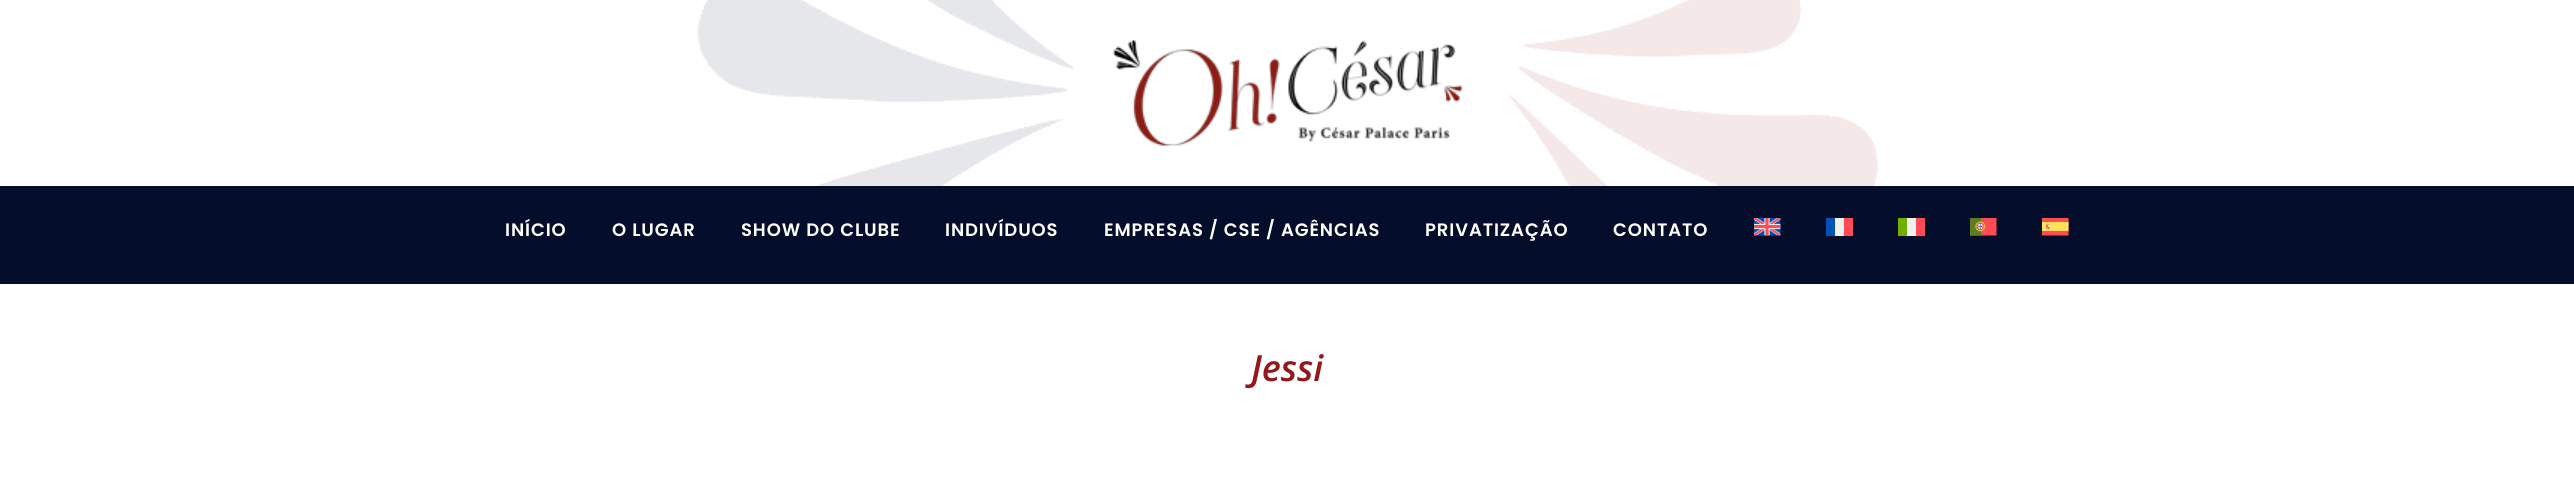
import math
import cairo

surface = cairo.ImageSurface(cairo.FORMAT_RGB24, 2574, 494)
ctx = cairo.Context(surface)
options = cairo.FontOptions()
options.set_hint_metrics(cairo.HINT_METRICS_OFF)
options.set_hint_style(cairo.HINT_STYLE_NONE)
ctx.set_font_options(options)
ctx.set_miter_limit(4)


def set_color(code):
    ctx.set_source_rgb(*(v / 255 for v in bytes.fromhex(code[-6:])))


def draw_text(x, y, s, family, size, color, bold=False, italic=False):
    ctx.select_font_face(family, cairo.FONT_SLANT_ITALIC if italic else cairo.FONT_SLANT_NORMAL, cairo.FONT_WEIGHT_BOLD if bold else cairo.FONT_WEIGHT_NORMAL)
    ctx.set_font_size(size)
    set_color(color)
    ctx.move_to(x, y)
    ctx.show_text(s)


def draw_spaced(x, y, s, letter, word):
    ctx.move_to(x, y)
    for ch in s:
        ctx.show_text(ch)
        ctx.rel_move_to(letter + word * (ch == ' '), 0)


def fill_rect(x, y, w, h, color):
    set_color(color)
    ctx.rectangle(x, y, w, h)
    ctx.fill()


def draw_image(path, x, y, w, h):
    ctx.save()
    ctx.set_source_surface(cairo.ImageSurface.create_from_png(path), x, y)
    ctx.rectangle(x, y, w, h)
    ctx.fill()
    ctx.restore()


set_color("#ffffff")
ctx.paint()
draw_image("assets/img1.png", 697, 0, 1181, 186)
draw_image("assets/img2.png", 1112, 40, 351, 106)
fill_rect(0, 186, 2574, 98, "#040e2b")
ctx.select_font_face("Poppins SemiBold")
ctx.set_font_size(18)
set_color("#ffffff")
draw_spaced(505, 236, "INÍCIO", 0.9, 0)
draw_spaced(612, 236, "O LUGAR", 0.9, 0)
draw_spaced(741, 236, "SHOW DO CLUBE", 0.9, 0)
draw_spaced(945, 236, "INDIVÍDUOS", 0.9, 0)
draw_spaced(1104, 236, "EMPRESAS / CSE / AGÊNCIAS", 0.9, 0)
draw_spaced(1425, 236, "PRIVATIZAÇÃO", 0.9, 0)
draw_spaced(1613, 236, "CONTATO", 0.9, 0)
draw_image("assets/img3.png", 1754, 218, 27, 18)
fill_rect(1835, 218, 9, 18, "#f0f0f0")
fill_rect(1844, 218, 9, 18, "#ff4b55")
fill_rect(1826, 218, 9, 18, "#0052b4")
fill_rect(1907, 218, 9, 18, "#f0f0f0")
fill_rect(1916, 218, 9, 18, "#ff4b55")
fill_rect(1898, 218, 9, 18, "#73af00")
draw_image("assets/img4.png", 1970, 218, 27, 18)
draw_image("assets/img5.png", 2042, 218, 27, 18)
draw_text(1251, 381, "Jessi", "Open Sans SemiBold", 36, "#93181b", italic=True)
surface.write_to_png("output.png")
